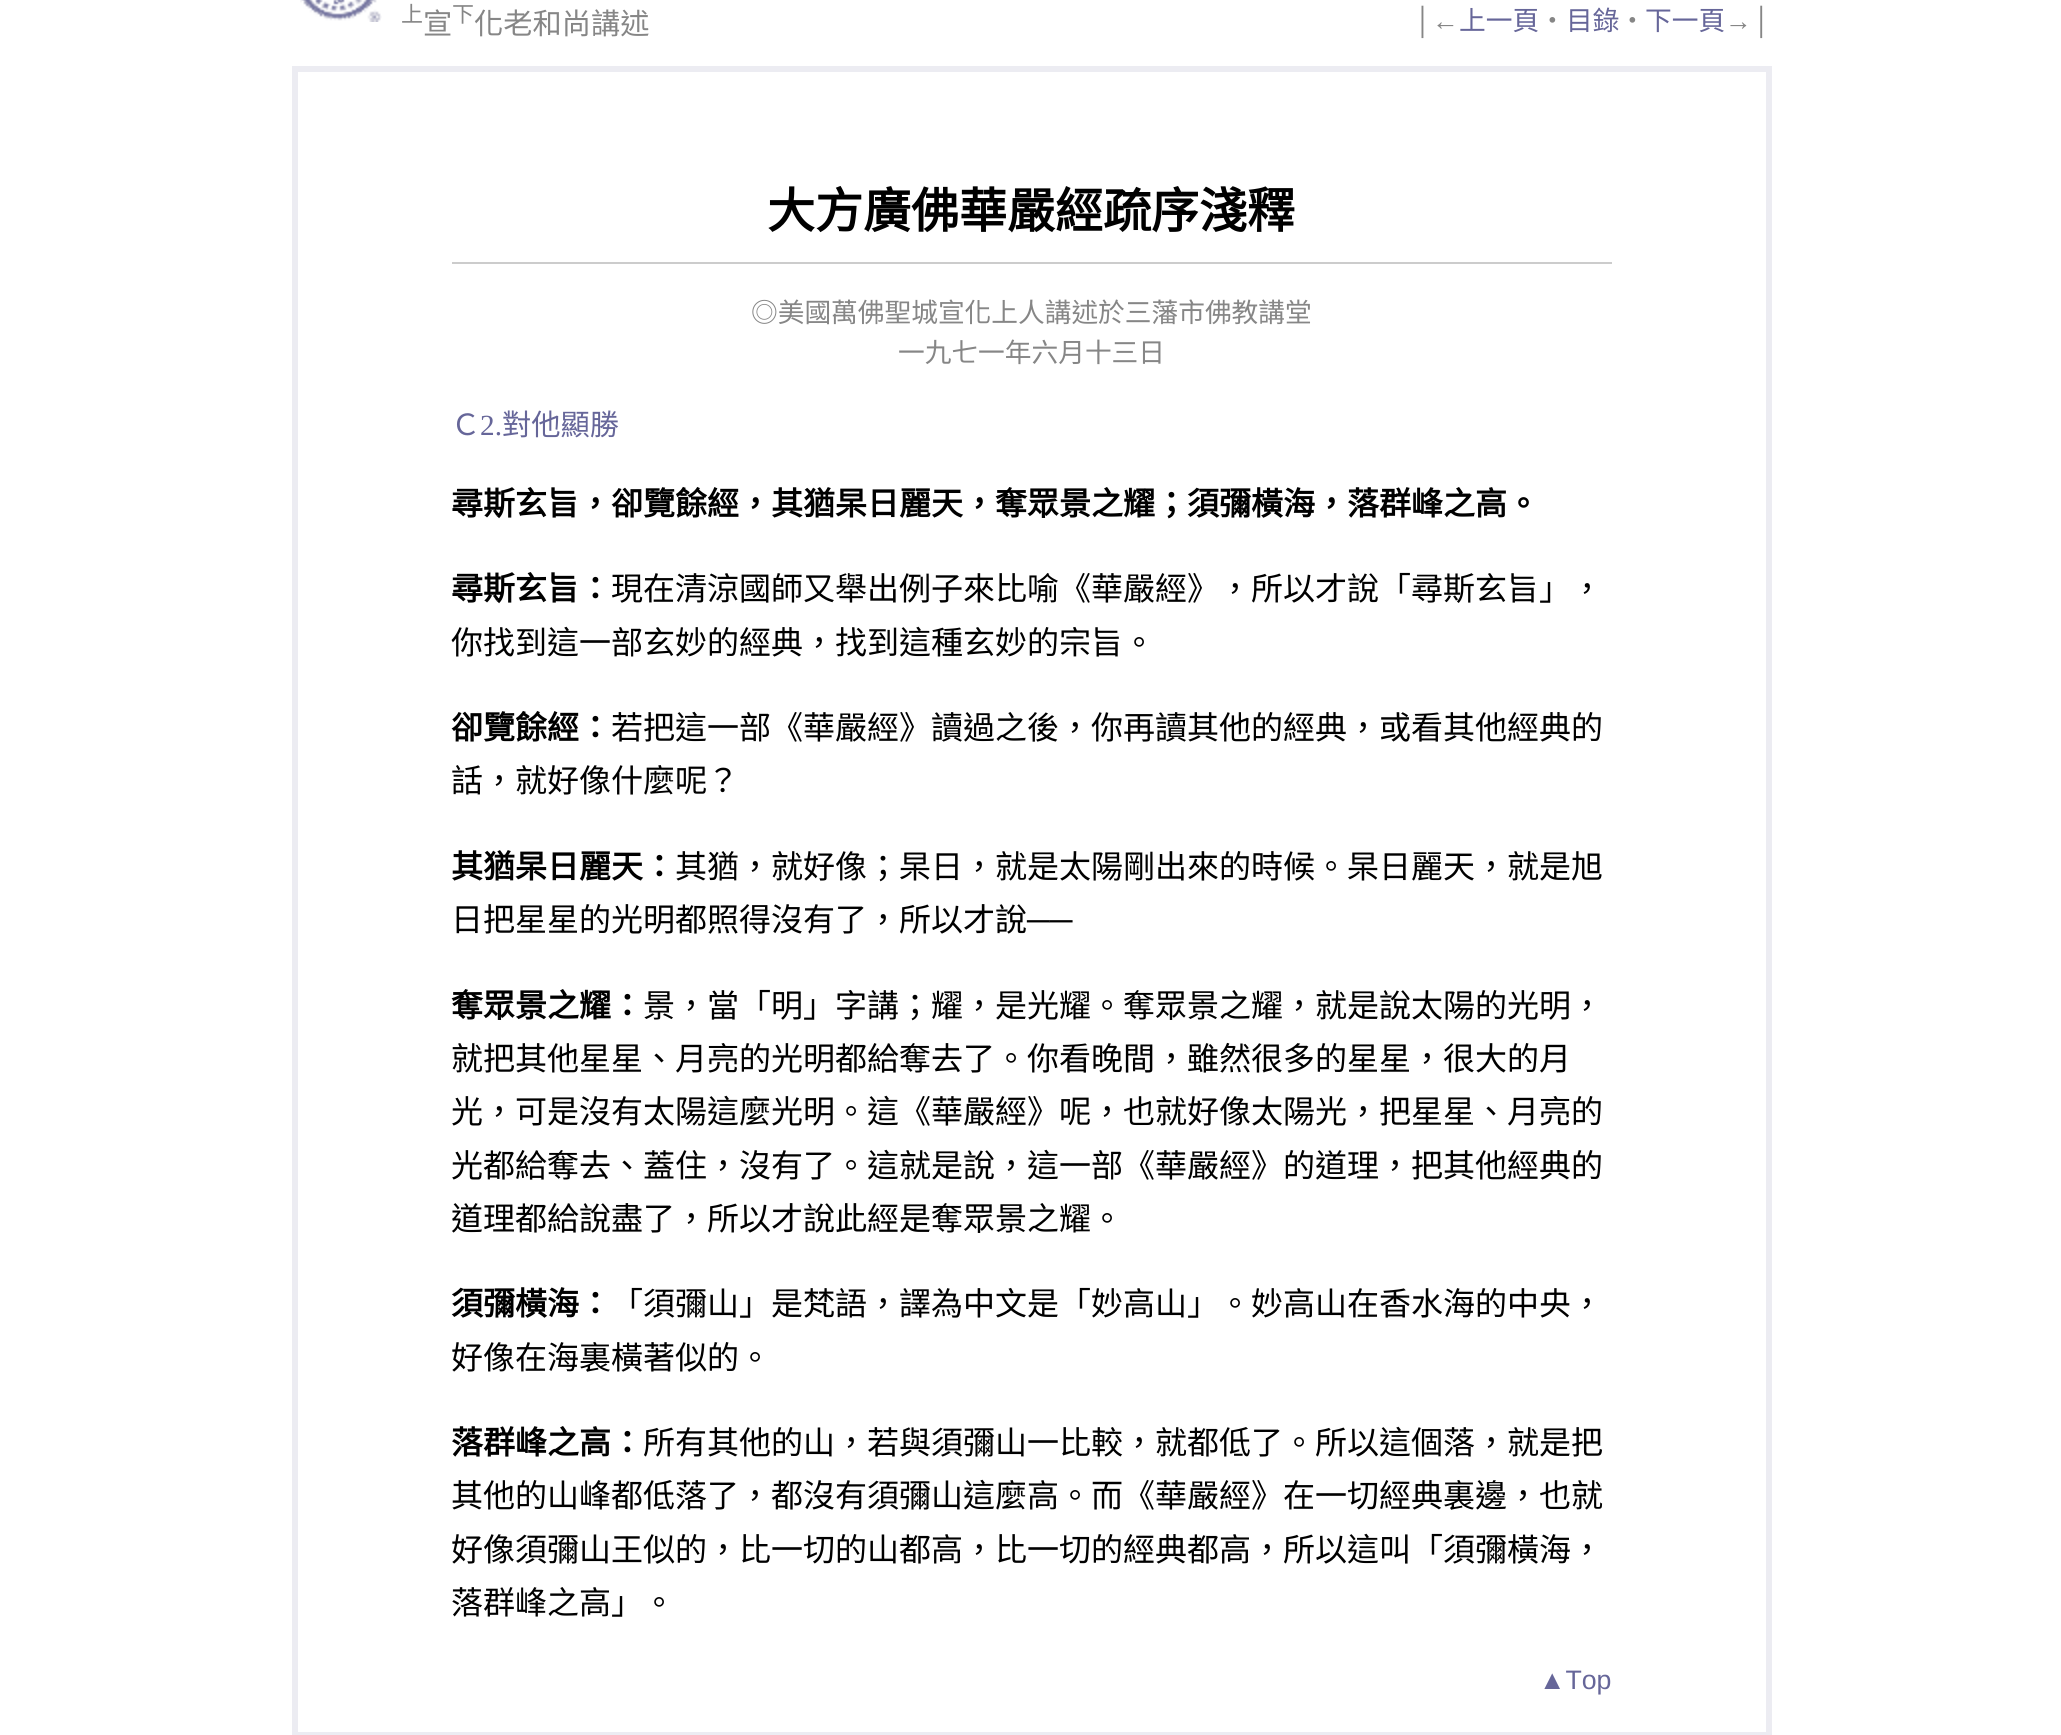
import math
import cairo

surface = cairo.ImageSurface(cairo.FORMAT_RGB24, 2061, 1735)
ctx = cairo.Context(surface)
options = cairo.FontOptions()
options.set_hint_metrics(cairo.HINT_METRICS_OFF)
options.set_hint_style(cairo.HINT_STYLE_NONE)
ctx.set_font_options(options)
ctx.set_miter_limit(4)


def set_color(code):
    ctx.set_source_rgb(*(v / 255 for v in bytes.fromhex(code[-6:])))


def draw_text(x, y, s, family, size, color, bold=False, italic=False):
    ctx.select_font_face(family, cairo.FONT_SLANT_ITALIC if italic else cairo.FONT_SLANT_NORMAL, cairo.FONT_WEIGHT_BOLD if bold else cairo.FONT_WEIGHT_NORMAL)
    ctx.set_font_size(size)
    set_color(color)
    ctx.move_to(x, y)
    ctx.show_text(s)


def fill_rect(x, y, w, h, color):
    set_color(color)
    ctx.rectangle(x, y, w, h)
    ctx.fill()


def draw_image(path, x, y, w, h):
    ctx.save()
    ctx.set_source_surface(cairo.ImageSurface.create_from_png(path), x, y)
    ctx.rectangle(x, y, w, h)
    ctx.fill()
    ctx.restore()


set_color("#ffffff")
ctx.paint()
draw_image("assets/img1.png", 300, 0, 82, 22)
draw_text(401, 22, "上", "Noto Sans CJK TC", 22, "#868686")
draw_text(423, 34, "宣", "Noto Sans CJK TC", 29.25, "#868686")
draw_text(452, 22, "下", "Noto Sans CJK TC", 22, "#868686")
draw_text(474, 34, "化老和尚講述", "Noto Sans CJK TC", 29.25, "#868686")
draw_text(1413, 30, "│←", "Liberation Serif", 26.7, "#868686")
draw_text(1459, 30, "上一頁", "Noto Sans CJK TC", 26.7, "#666699")
draw_text(1539, 30, "‧", "Noto Sans CJK TC", 26.7, "#868686")
draw_text(1566, 30, "目錄", "Noto Sans CJK TC", 26.7, "#666699")
draw_text(1619, 30, "‧", "Noto Sans CJK TC", 26.7, "#868686")
draw_text(1645, 30, "下一頁", "Noto Sans CJK TC", 26.7, "#666699")
draw_text(1725, 30, "→│", "Liberation Serif", 26.7, "#868686")
fill_rect(292, 66, 1480, 6, "#ececf2")
fill_rect(1766, 66, 6, 1669, "#ececf2")
fill_rect(292, 1732, 1480, 3, "#ececf2")
fill_rect(292, 66, 6, 1669, "#ececf2")
fill_rect(452, 262, 1160, 2, "#cccccc")
draw_text(767, 228, "大方廣佛華嚴經疏序淺釋", "Noto Sans CJK TC", 48, "#000000", bold=True)
draw_text(751, 322, "◎美國萬佛聖城宣化上人講述於三藩市佛教講堂", "Noto Sans CJK TC", 26.7, "#868686")
draw_text(898, 362, "一九七一年六月十三日", "Noto Sans CJK TC", 26.7, "#868686")
draw_text(451, 435, "Ｃ", "Noto Sans CJK TC", 29.25, "#666699")
draw_text(480, 435, "2.", "Liberation Serif", 29.25, "#666699")
draw_text(502, 435, "對他顯勝", "Noto Sans CJK TC", 29.25, "#666699")
draw_text(451, 515, "尋斯玄旨，卻覽餘經，其猶杲日麗天，奪眾景之耀；須彌橫海，落群峰之高。", "Noto Sans CJK TC", 32, "#000000", bold=True)
draw_text(451, 600, "尋斯玄旨：", "Noto Sans CJK TC", 32, "#000000", bold=True)
draw_text(611, 600, "現在清涼國師又舉出例子來比喻《華嚴經》，所以才說「尋斯玄旨」，", "Noto Sans CJK TC", 32, "#000000")
draw_text(451, 654, "你找到這一部玄妙的經典，找到這種玄妙的宗旨。", "Noto Sans CJK TC", 32, "#000000")
draw_text(451, 739, "卻覽餘經：", "Noto Sans CJK TC", 32, "#000000", bold=True)
draw_text(611, 739, "若把這一部《華嚴經》讀過之後，你再讀其他的經典，或看其他經典的", "Noto Sans CJK TC", 32, "#000000")
draw_text(451, 792, "話，就好像什麼呢？", "Noto Sans CJK TC", 32, "#000000")
draw_text(451, 878, "其猶杲日麗天：", "Noto Sans CJK TC", 32, "#000000", bold=True)
draw_text(675, 878, "其猶，就好像；杲日，就是太陽剛出來的時候。杲日麗天，就是旭", "Noto Sans CJK TC", 32, "#000000")
draw_text(451, 931, "日把星星的光明都照得沒有了，所以才說", "Noto Sans CJK TC", 32, "#000000")
draw_text(1027, 931, "──", "Liberation Serif", 32, "#000000")
draw_text(451, 1017, "奪眾景之耀：", "Noto Sans CJK TC", 32, "#000000", bold=True)
draw_text(643, 1017, "景，當「明」字講；耀，是光耀。奪眾景之耀，就是說太陽的光明，", "Noto Sans CJK TC", 32, "#000000")
draw_text(451, 1070, "就把其他星星、月亮的光明都給奪去了。你看晚間，雖然很多的星星，很大的月", "Noto Sans CJK TC", 32, "#000000")
draw_text(451, 1123, "光，可是沒有太陽這麼光明。這《華嚴經》呢，也就好像太陽光，把星星、月亮的", "Noto Sans CJK TC", 32, "#000000")
draw_text(451, 1177, "光都給奪去、蓋住，沒有了。這就是說，這一部《華嚴經》的道理，把其他經典的", "Noto Sans CJK TC", 32, "#000000")
draw_text(451, 1230, "道理都給說盡了，所以才說此經是奪眾景之耀。", "Noto Sans CJK TC", 32, "#000000")
draw_text(451, 1315, "須彌橫海：", "Noto Sans CJK TC", 32, "#000000", bold=True)
draw_text(611, 1315, "「須彌山」是梵語，譯為中文是「妙高山」。妙高山在香水海的中央，", "Noto Sans CJK TC", 32, "#000000")
draw_text(451, 1369, "好像在海裏橫著似的。", "Noto Sans CJK TC", 32, "#000000")
draw_text(451, 1454, "落群峰之高：", "Noto Sans CJK TC", 32, "#000000", bold=True)
draw_text(643, 1454, "所有其他的山，若與須彌山一比較，就都低了。所以這個落，就是把", "Noto Sans CJK TC", 32, "#000000")
draw_text(451, 1507, "其他的山峰都低落了，都沒有須彌山這麼高。而《華嚴經》在一切經典裏邊，也就", "Noto Sans CJK TC", 32, "#000000")
draw_text(451, 1561, "好像須彌山王似的，比一切的山都高，比一切的經典都高，所以這叫「須彌橫海，", "Noto Sans CJK TC", 32, "#000000")
draw_text(451, 1614, "落群峰之高」。", "Noto Sans CJK TC", 32, "#000000")
draw_text(1539, 1689, "▲Top", "Liberation Sans", 26.7, "#666699")
surface.write_to_png("output.png")
